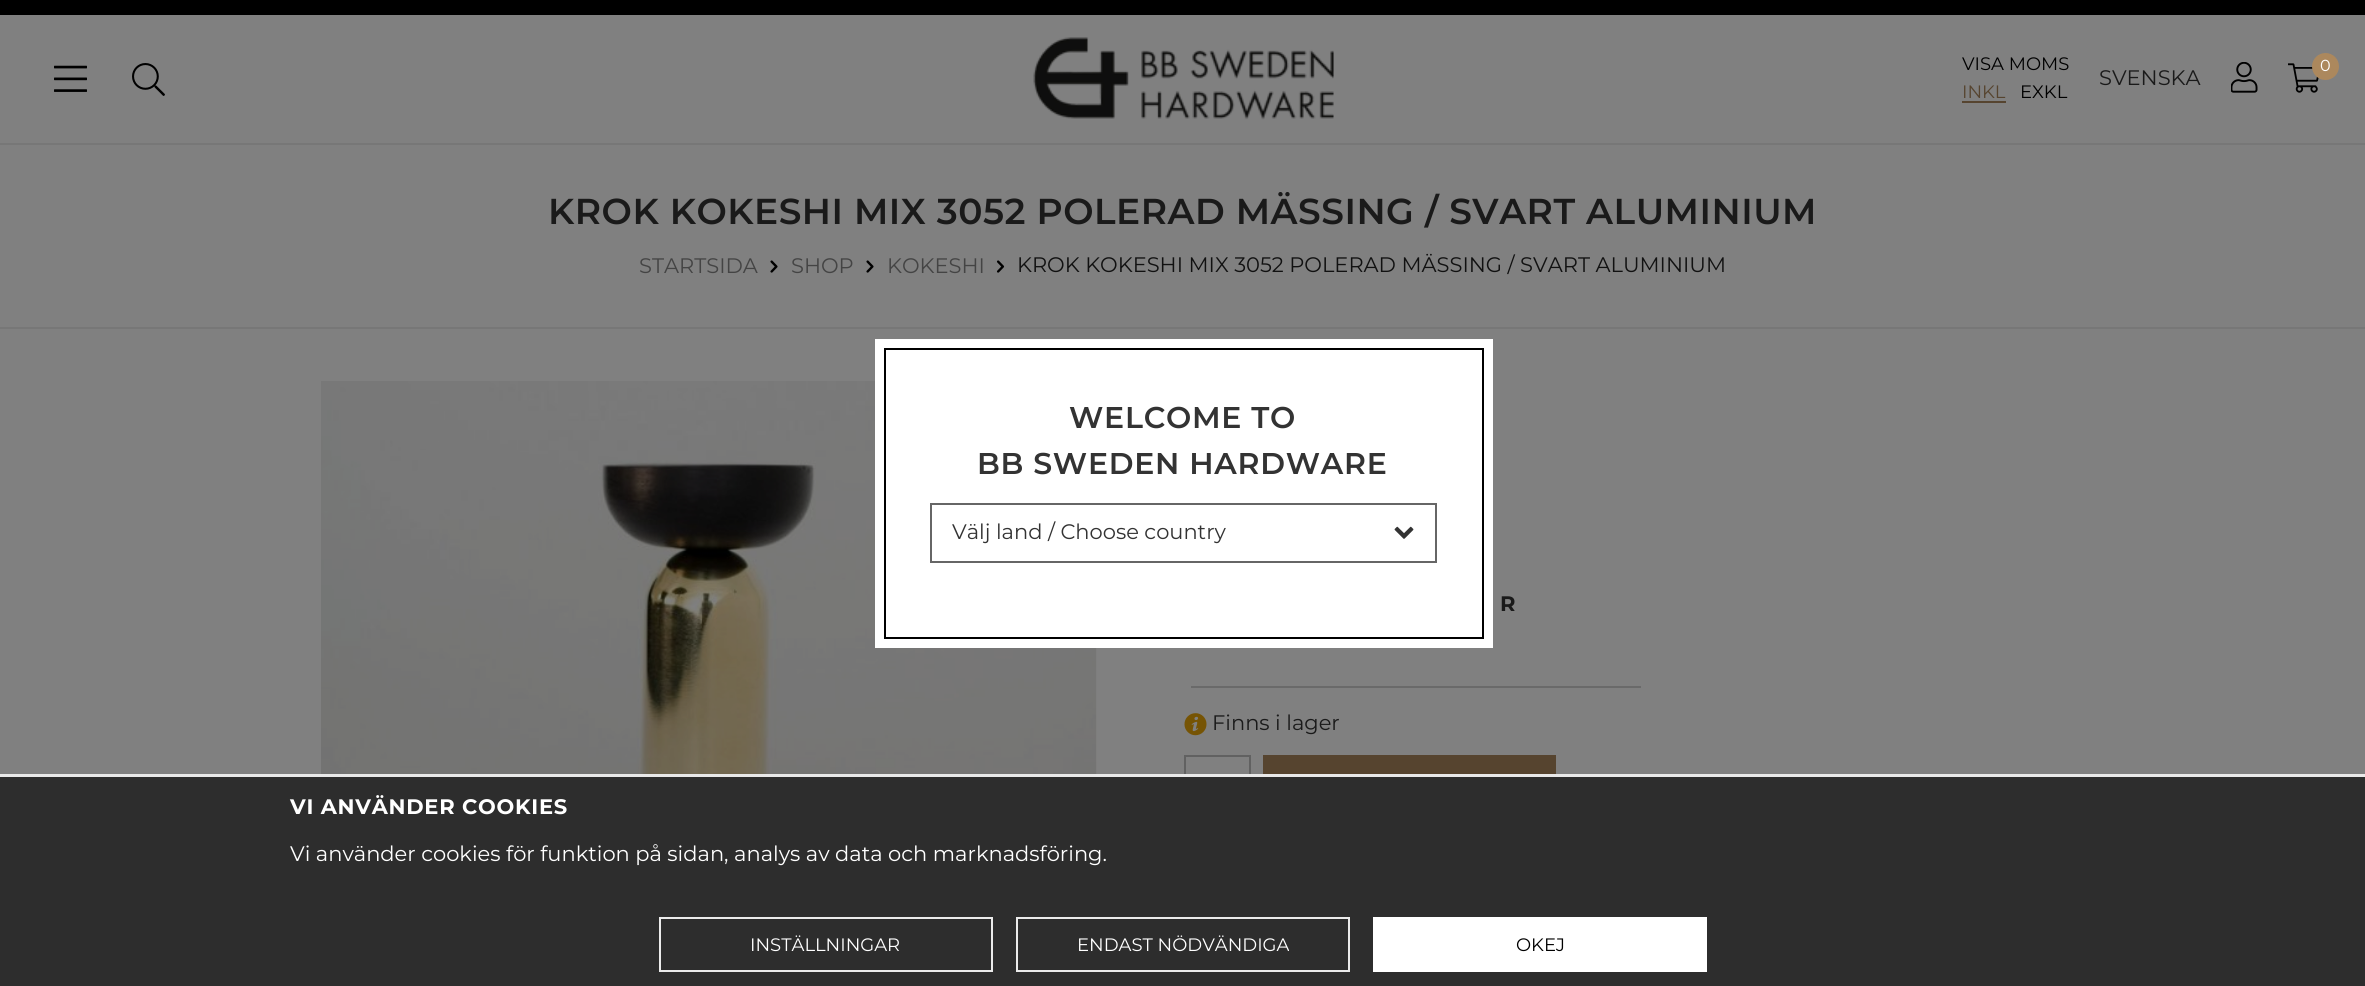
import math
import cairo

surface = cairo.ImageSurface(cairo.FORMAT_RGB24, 2365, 986)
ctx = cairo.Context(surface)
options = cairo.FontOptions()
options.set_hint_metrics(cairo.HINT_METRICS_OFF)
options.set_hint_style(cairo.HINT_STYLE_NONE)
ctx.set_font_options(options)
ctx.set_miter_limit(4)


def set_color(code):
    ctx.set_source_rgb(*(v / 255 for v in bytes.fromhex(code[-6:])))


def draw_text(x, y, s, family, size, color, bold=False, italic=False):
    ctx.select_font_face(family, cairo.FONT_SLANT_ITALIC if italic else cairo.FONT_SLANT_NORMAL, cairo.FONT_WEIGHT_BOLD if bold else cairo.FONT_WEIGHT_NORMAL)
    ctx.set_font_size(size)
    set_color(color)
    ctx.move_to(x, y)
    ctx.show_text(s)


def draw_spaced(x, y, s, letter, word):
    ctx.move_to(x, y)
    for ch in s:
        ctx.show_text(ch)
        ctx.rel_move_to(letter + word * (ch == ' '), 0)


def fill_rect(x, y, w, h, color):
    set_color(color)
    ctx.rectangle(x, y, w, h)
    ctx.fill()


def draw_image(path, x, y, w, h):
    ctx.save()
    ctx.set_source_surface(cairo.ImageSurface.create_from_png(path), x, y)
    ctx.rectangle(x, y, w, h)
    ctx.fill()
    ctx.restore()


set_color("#808080")
ctx.paint()
fill_rect(0, 0, 2365, 15, "#000000")
draw_image("assets/img1.png", 1033, 37, 301, 83)
draw_image("assets/img2.png", 54, 65, 33, 27)
draw_image("assets/img3.png", 132, 63, 33, 33)
draw_text(1962, 70, "VISA MOMS", "Montserrat", 18, "#000000")
draw_text(1962, 98, "INKL", "Montserrat", 18, "#56442f")
fill_rect(1962, 101, 44, 2, "#56442f")
draw_text(2020, 98, "EXKL", "Montserrat", 18, "#000000")
draw_image("assets/img4.png", 2231, 62, 27, 31)
draw_image("assets/img5.png", 2288, 63, 31, 30)
set_color("#ac885d")
ctx.arc(2325.5, 66.5, 13.5, 0, 2 * math.pi)
ctx.fill()
draw_text(2320, 71, "0", "Montserrat", 16, "#ffffff")
draw_text(2099, 85, "SVENSKA", "Montserrat", 21, "#1a1a1a")
draw_image("assets/img9.png", 321, 381, 776, 393)
fill_rect(875, 339, 618, 309, "#ffffff")
ctx.rectangle(885, 349, 598, 289)
set_color("#000000")
ctx.stroke()
ctx.select_font_face("Montserrat SemiBold")
ctx.set_font_size(30)
set_color("#333333")
draw_spaced(1069, 428, "WELCOME TO", 0.75, 0)
draw_spaced(977, 474, "BB SWEDEN HARDWARE", 0.75, 0)
ctx.rectangle(931, 504, 505, 58)
set_color("#666666")
ctx.stroke()
draw_text(952, 539, "Välj land / Choose country", "Montserrat", 21, "#333333")
draw_image("assets/img6.png", 1394, 526, 20, 13)
fill_rect(0, 143, 2365, 2, "#777777")
fill_rect(0, 327, 2365, 2, "#777777")
ctx.select_font_face("Montserrat SemiBold")
ctx.set_font_size(36)
set_color("#1a1a1a")
draw_spaced(548, 224, "KROK KOKESHI MIX 3052 POLERAD MÄSSING / SVART ALUMINIUM", 0.52, 0)
draw_text(639, 273, "STARTSIDA", "Montserrat", 21, "#444444")
draw_image("assets/img7.png", 770, 260, 8, 13)
draw_text(791, 273, "SHOP", "Montserrat", 21, "#444444")
draw_image("assets/img7.png", 866, 260, 8, 13)
draw_text(887, 273, "KOKESHI", "Montserrat", 21, "#444444")
draw_image("assets/img8.png", 996, 260, 9, 13)
draw_text(1017, 272, "KROK KOKESHI MIX 3052 POLERAD MÄSSING / SVART ALUMINIUM", "Montserrat", 21, "#111111")
draw_text(1500, 611, "R", "Montserrat", 21, "#1a1a1a", bold=True)
fill_rect(1191, 686, 450, 2, "#6a6a6a")
draw_image("assets/img10.png", 1184, 713, 23, 23)
draw_text(1212, 730, "Finns i lager", "Montserrat", 21, "#1a1a1a")
ctx.rectangle(1185, 756, 65, 65)
set_color("#616161")
ctx.stroke()
fill_rect(1263, 755, 293, 19, "#56442f")
fill_rect(0, 777, 2365, 209, "#2d2d2d")
fill_rect(0, 774, 2365, 3, "#e9e9e9")
ctx.select_font_face("Montserrat", cairo.FONT_SLANT_NORMAL, cairo.FONT_WEIGHT_BOLD)
set_color("#ffffff")
draw_spaced(290, 814, "VI ANVÄNDER COOKIES", 0.75, 0)
draw_text(290, 861, "Vi använder cookies för funktion på sidan, analys av data och marknadsföring.", "Montserrat", 21, "#ffffff")
ctx.rectangle(660, 918, 332, 53)
set_color("#ebebeb")
ctx.stroke()
draw_text(750, 951, "INSTÄLLNINGAR", "Montserrat", 18, "#ffffff")
ctx.rectangle(1017, 918, 332, 53)
set_color("#ebebeb")
ctx.stroke()
draw_text(1077, 951, "ENDAST NÖDVÄNDIGA", "Montserrat", 18, "#ffffff")
fill_rect(1373, 917, 334, 55, "#ffffff")
draw_text(1516, 951, "OKEJ", "Montserrat", 18, "#000000")
surface.write_to_png("output.png")
